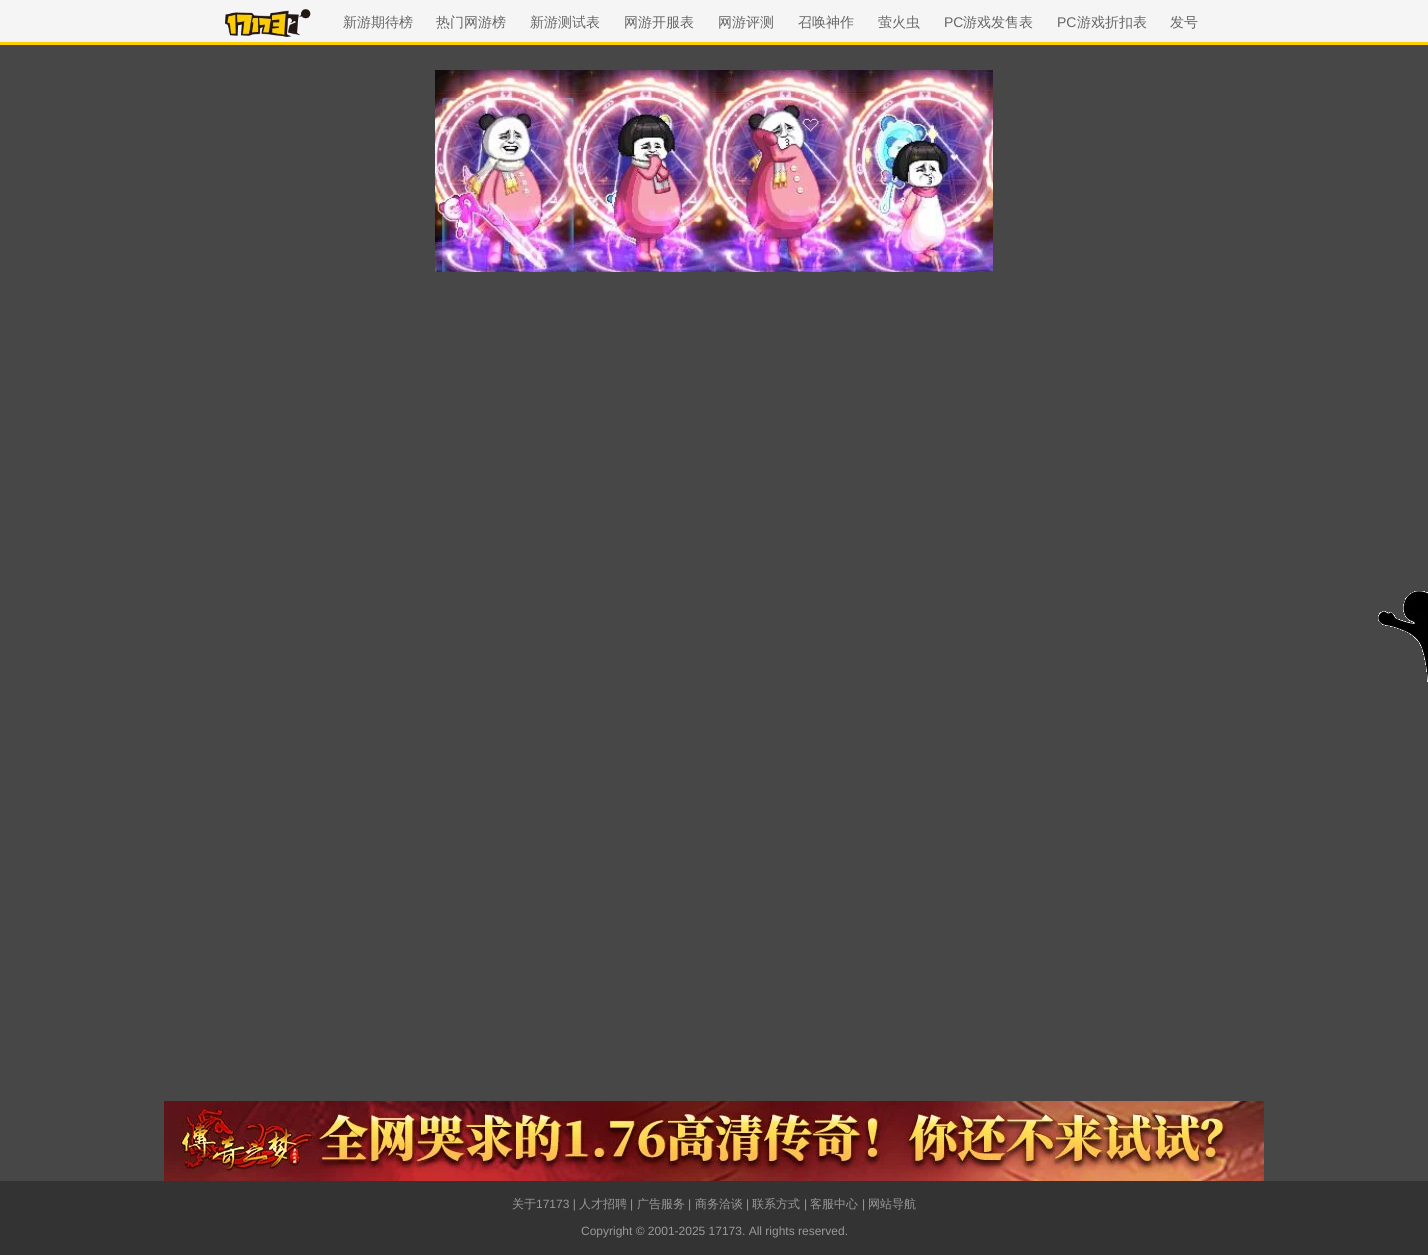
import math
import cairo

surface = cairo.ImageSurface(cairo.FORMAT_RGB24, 1428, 1255)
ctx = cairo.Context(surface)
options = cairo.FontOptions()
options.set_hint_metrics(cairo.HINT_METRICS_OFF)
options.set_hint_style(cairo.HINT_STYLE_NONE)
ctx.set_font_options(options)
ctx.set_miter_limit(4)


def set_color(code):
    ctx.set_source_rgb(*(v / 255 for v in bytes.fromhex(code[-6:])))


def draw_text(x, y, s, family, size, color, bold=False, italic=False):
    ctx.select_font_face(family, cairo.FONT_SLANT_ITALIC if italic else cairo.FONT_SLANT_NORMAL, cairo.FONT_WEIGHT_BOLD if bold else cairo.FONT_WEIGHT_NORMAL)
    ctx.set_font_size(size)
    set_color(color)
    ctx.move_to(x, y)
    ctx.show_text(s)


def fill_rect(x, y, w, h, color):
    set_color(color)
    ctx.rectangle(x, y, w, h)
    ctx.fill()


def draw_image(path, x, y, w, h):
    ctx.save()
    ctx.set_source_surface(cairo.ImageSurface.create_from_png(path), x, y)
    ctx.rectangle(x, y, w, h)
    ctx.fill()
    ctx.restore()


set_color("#474747")
ctx.paint()
fill_rect(0, 0, 1428, 42, "#f5f5f5")
fill_rect(0, 42, 1428, 3, "#ffcd00")
draw_image("assets/img1.png", 225, 9, 86, 28)
draw_text(343, 27, "新游期待榜", "WenQuanYi Zen Hei Medium", 14, "#666666")
draw_text(436, 27, "热门网游榜", "WenQuanYi Zen Hei Medium", 14, "#666666")
draw_text(530, 27, "新游测试表", "WenQuanYi Zen Hei Medium", 14, "#666666")
draw_text(624, 27, "网游开服表", "WenQuanYi Zen Hei Medium", 14, "#666666")
draw_text(718, 27, "网游评测", "WenQuanYi Zen Hei Medium", 14, "#666666")
draw_text(798, 27, "召唤神作", "WenQuanYi Zen Hei Medium", 14, "#666666")
draw_text(878, 27, "萤火虫", "WenQuanYi Zen Hei Medium", 14, "#666666")
draw_text(944, 27, "PC", "Liberation Sans", 14, "#666666")
draw_text(963, 27, "游戏发售表", "WenQuanYi Zen Hei Medium", 14, "#666666")
draw_text(1057, 27, "PC", "Liberation Sans", 14, "#666666")
draw_text(1077, 27, "游戏折扣表", "WenQuanYi Zen Hei Medium", 14, "#666666")
draw_text(1170, 27, "发号", "WenQuanYi Zen Hei Medium", 14, "#666666")
draw_image("assets/img2.png", 435, 70, 558, 202)
draw_image("assets/img3.png", 164, 1101, 1100, 80)
draw_image("assets/img4.png", 1378, 591, 50, 91)
fill_rect(0, 1181, 1428, 74, "#333333")
draw_text(512, 1208, "关于", "WenQuanYi Zen Hei Medium", 12, "#999999")
draw_text(536, 1208, "17173 |", "Liberation Sans", 12, "#999999")
draw_text(579, 1208, "人才招聘", "WenQuanYi Zen Hei Medium", 12, "#999999")
draw_text(630, 1208, "|", "Liberation Sans", 12, "#999999")
draw_text(637, 1208, "广告服务", "WenQuanYi Zen Hei Medium", 12, "#999999")
draw_text(688, 1208, "|", "Liberation Sans", 12, "#999999")
draw_text(695, 1208, "商务洽谈", "WenQuanYi Zen Hei Medium", 12, "#999999")
draw_text(746, 1208, "|", "Liberation Sans", 12, "#999999")
draw_text(752, 1208, "联系方式", "WenQuanYi Zen Hei Medium", 12, "#999999")
draw_text(804, 1208, "|", "Liberation Sans", 12, "#999999")
draw_text(810, 1208, "客服中心", "WenQuanYi Zen Hei Medium", 12, "#999999")
draw_text(862, 1208, "|", "Liberation Sans", 12, "#999999")
draw_text(868, 1208, "网站导航", "WenQuanYi Zen Hei Medium", 12, "#999999")
draw_text(581, 1235, "Copyright © 2001-2025 17173. All rights reserved.", "Liberation Sans", 12, "#999999")
surface.write_to_png("output.png")
